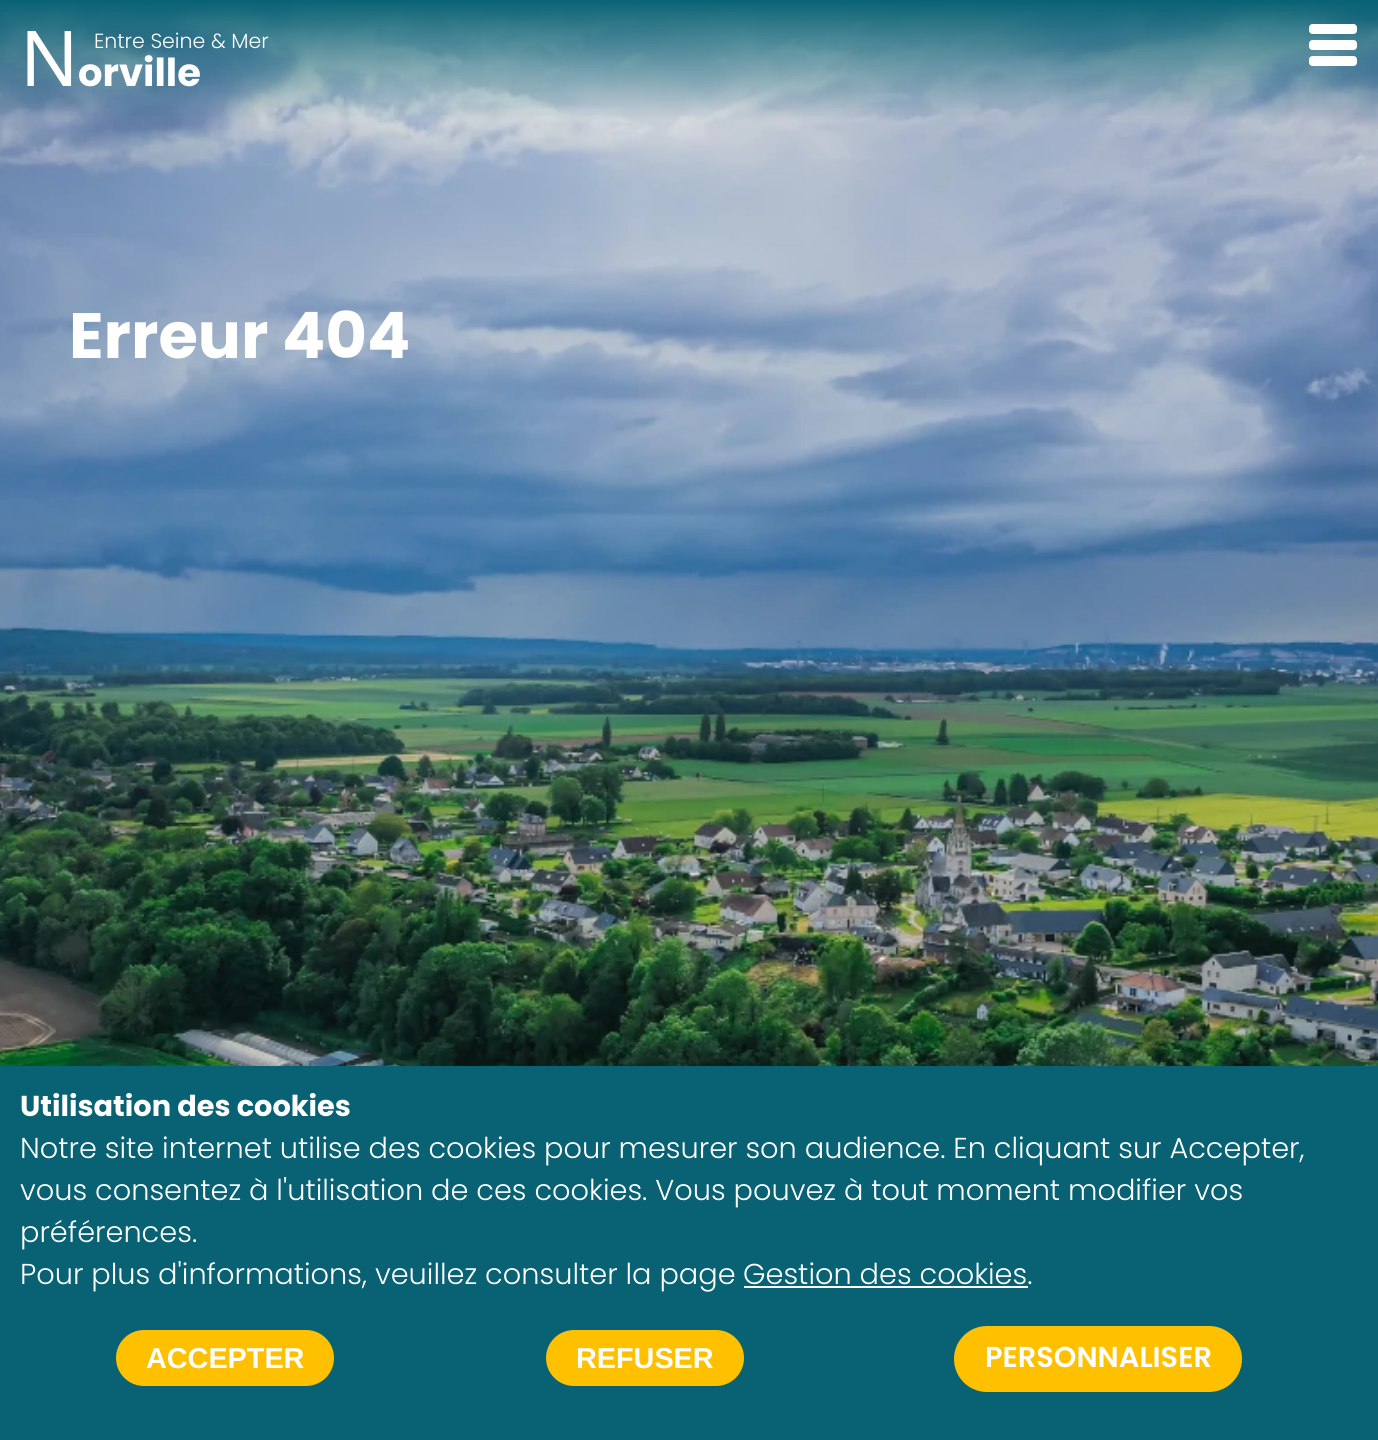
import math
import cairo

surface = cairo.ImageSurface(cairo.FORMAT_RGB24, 1378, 1440)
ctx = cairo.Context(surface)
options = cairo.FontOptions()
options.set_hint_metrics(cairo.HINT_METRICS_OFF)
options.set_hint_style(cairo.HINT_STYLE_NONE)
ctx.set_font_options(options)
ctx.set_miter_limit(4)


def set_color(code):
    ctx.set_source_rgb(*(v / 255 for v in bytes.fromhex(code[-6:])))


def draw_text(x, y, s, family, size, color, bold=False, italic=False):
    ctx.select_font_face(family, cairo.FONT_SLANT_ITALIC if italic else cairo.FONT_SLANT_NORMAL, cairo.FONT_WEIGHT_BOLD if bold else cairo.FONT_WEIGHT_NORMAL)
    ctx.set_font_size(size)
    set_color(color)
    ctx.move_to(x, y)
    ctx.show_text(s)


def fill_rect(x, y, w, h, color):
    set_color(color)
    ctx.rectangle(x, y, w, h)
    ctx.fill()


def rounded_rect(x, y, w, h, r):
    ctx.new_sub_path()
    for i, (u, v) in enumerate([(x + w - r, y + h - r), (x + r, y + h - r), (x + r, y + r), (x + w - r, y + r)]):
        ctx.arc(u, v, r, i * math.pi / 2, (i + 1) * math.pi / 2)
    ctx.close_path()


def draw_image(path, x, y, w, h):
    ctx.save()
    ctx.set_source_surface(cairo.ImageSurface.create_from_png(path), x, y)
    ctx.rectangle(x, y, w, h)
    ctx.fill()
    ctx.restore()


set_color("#ffffff")
ctx.paint()
draw_image("assets/img2.png", 0, 0, 1378, 1066)
draw_text(20, 86, "N", "Noto Sans", 77, "#ffffff")
draw_text(78, 86, "orville", "Poppins", 38.5, "#ffffff", bold=True)
draw_text(94, 48, "Entre Seine & Mer", "Poppins Light", 20.5, "#ffffff")
draw_image("assets/img1.png", 1309, 24, 48, 42)
draw_text(69, 358, "Erreur 404", "Poppins", 64, "#ffffff", bold=True)
fill_rect(0, 1066, 1378, 374, "#086274")
draw_text(20, 1116, "Utilisation des cookies", "Poppins", 28.8, "#ffffff", bold=True)
draw_text(20, 1158, "Notre site internet utilise des cookies pour mesurer son audience. En cliquant sur Accepter,", "Poppins Light", 28.8, "#ffffff")
draw_text(20, 1200, "vous consentez à l'utilisation de ces cookies. Vous pouvez à tout moment modifier vos", "Poppins Light", 28.8, "#ffffff")
draw_text(20, 1242, "préférences.", "Poppins Light", 28.8, "#ffffff")
draw_text(20, 1284, "Pour plus d'informations, veuillez consulter la page", "Poppins Light", 28.8, "#ffffff")
draw_text(743, 1284, "Gestion des cookies.", "Poppins Light", 28.8, "#ffffff")
fill_rect(744, 1286, 284, 2, "#ffffff")
set_color("#ffc000")
rounded_rect(117, 1331, 216, 54, 27)
ctx.fill_preserve()
ctx.stroke()
draw_text(146, 1368, "ACCEPTER", "Liberation Sans", 28.8, "#ffffff", bold=True)
set_color("#ffc000")
rounded_rect(547, 1331, 196, 54, 27)
ctx.fill_preserve()
ctx.stroke()
draw_text(576, 1368, "REFUSER", "Liberation Sans", 28.8, "#ffffff", bold=True)
set_color("#ffc000")
rounded_rect(955, 1327, 286, 64, 32)
ctx.fill_preserve()
ctx.stroke()
draw_text(985, 1367, "PERSONNALISER", "Poppins SemiBold", 28.8, "#ffffff")
surface.write_to_png("output.png")
